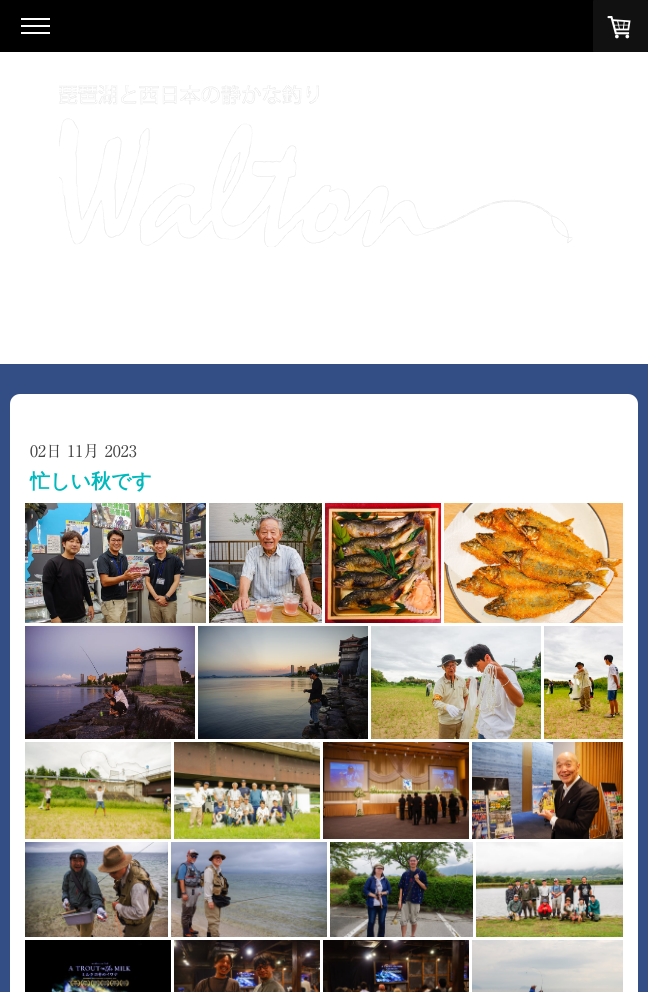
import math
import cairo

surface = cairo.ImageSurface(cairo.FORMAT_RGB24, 648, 992)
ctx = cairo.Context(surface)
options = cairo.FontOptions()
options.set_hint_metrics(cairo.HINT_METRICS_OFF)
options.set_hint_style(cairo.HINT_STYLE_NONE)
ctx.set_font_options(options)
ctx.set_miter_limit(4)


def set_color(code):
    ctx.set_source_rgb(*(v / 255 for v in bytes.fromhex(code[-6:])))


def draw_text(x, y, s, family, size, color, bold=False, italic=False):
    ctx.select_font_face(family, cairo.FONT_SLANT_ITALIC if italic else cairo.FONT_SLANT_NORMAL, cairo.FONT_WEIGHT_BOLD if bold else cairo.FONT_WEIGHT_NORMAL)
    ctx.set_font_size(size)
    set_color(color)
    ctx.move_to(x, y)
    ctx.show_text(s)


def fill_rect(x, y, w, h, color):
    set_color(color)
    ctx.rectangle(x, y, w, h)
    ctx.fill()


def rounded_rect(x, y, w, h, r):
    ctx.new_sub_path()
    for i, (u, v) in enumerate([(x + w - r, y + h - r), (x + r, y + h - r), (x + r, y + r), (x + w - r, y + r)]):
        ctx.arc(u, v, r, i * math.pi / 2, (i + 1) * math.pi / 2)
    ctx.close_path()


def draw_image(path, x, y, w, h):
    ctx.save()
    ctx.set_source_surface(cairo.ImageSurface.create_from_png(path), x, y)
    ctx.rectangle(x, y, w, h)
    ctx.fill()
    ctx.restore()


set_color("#ffffff")
ctx.paint()
fill_rect(0, 0, 648, 52, "#000000")
fill_rect(21, 25, 29, 2, "#ffffff")
fill_rect(21, 18, 29, 2, "#ffffff")
fill_rect(21, 32, 29, 2, "#ffffff")
set_color("#111111")
rounded_rect(593, 0, 55, 52, 1)
ctx.fill()
draw_image("assets/img1.png", 607, 16, 24, 23)
draw_image("assets/img2.png", 59, 85, 514, 162)
fill_rect(0, 364, 648, 628, "#334d85")
set_color("#ffffff")
rounded_rect(10, 394, 628, 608, 10)
ctx.fill()
draw_text(30, 457, "02日 11月 2023", "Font", 16, "#444444")
draw_text(30, 488, "忙しい秋です", "WenQuanYi Zen Hei", 20, "#00b9bc", bold=True)
draw_image("assets/img3.png", 25, 503, 181, 120)
draw_image("assets/img4.png", 209, 503, 113, 120)
draw_image("assets/img5.png", 325, 503, 116, 120)
draw_image("assets/img6.png", 444, 503, 179, 120)
draw_image("assets/img7.png", 25, 626, 170, 113)
draw_image("assets/img8.png", 198, 626, 170, 113)
draw_image("assets/img9.png", 371, 626, 170, 113)
draw_image("assets/img10.png", 544, 626, 79, 113)
draw_image("assets/img11.png", 25, 742, 146, 97)
draw_image("assets/img12.png", 174, 742, 146, 97)
draw_image("assets/img13.png", 323, 742, 146, 97)
draw_image("assets/img14.png", 472, 742, 151, 97)
draw_image("assets/img15.png", 25, 842, 143, 95)
draw_image("assets/img16.png", 171, 842, 156, 95)
draw_image("assets/img17.png", 330, 842, 143, 95)
draw_image("assets/img18.png", 476, 842, 147, 95)
draw_image("assets/img19.png", 25, 940, 146, 52)
draw_image("assets/img20.png", 174, 940, 146, 52)
draw_image("assets/img21.png", 323, 940, 146, 52)
draw_image("assets/img22.png", 472, 940, 151, 52)
surface.write_to_png("output.png")
